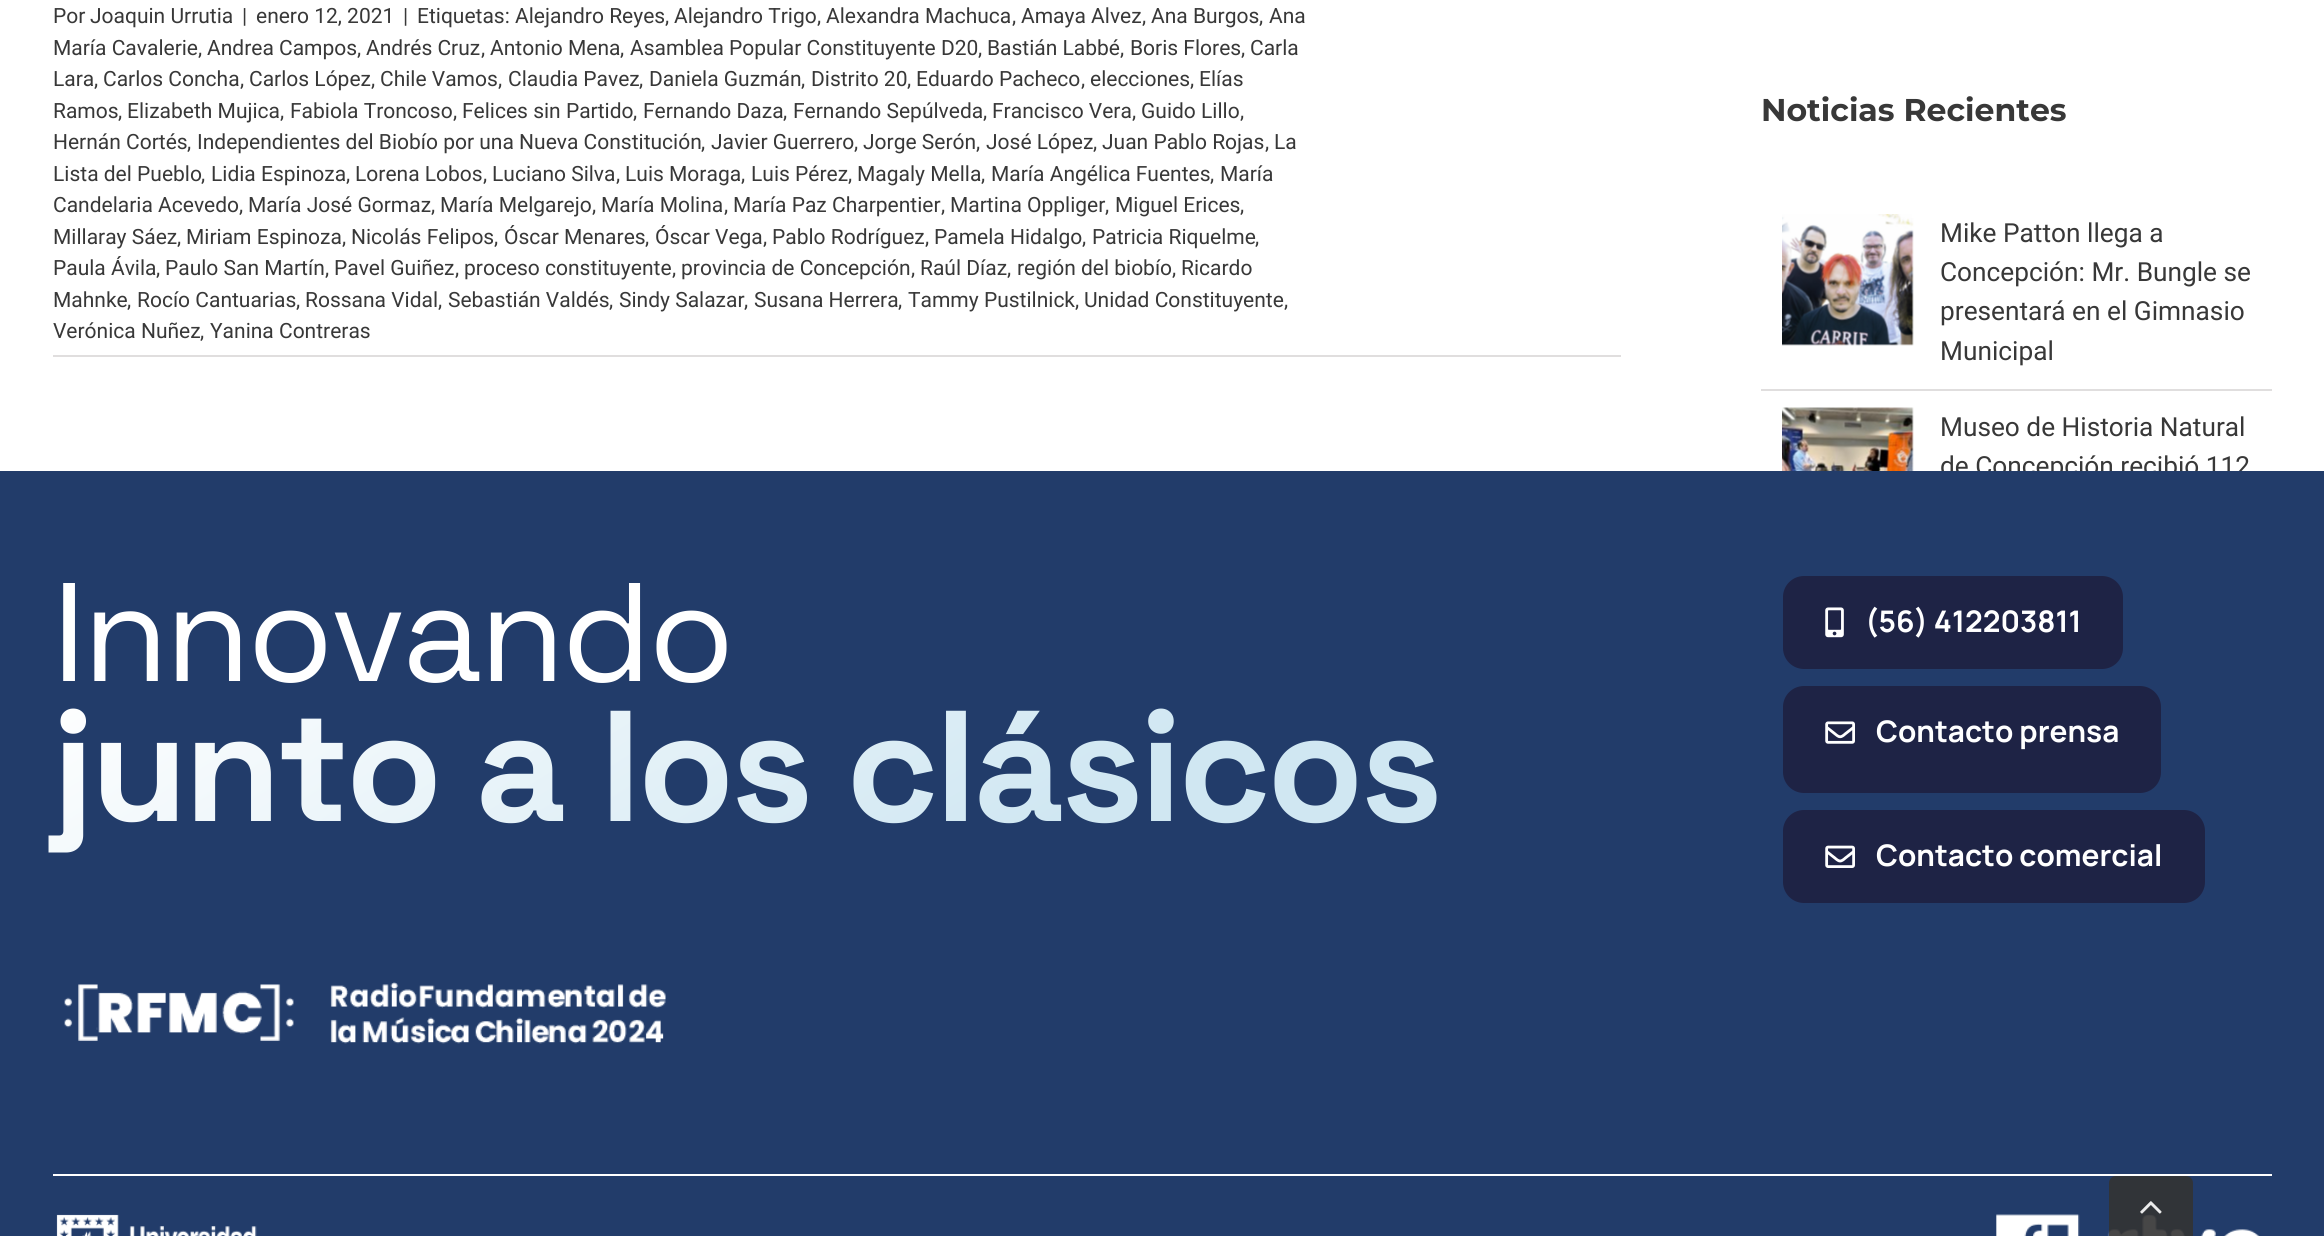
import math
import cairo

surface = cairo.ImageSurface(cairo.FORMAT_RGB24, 2324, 1236)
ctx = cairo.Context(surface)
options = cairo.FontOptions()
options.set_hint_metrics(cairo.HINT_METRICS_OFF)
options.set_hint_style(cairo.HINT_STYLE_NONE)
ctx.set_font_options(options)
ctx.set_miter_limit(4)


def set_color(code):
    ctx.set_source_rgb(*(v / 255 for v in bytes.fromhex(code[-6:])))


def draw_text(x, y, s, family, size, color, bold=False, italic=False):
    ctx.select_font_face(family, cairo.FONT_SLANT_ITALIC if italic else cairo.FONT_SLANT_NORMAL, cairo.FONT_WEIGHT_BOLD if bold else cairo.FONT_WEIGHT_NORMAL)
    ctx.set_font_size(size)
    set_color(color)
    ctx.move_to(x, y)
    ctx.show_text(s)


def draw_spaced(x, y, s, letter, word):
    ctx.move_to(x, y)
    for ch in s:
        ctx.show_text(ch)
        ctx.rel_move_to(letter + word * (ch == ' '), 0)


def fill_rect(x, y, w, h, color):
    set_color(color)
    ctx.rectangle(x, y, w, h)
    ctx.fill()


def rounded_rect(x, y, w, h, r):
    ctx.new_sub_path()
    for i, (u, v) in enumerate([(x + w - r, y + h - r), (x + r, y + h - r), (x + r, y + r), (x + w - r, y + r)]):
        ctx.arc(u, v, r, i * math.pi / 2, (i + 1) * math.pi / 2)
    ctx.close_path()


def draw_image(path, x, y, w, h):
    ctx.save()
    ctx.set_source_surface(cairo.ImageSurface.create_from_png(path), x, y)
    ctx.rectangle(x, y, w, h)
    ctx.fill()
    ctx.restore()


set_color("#ffffff")
ctx.paint()
fill_rect(53, 355, 1568, 2, "#e0dede")
draw_text(53, 23, "Por", "Roboto", 21, "#383838")
draw_text(90, 23, "Joaquin Urrutia", "Roboto", 21, "#383838")
draw_text(242, 23, "|", "Roboto", 21, "#383838")
draw_text(256, 23, "enero 12, 2021", "Roboto", 21, "#383838")
draw_text(403, 23, "|", "Roboto", 21, "#383838")
draw_text(417, 23, "Etiquetas:", "Roboto", 21, "#383838")
draw_text(515, 23, "Alejandro Reyes", "Roboto", 21, "#383838")
draw_text(665, 23, ",", "Roboto", 21, "#383838")
draw_text(674, 23, "Alejandro Trigo", "Roboto", 21, "#383838")
draw_text(817, 23, ",", "Roboto", 21, "#383838")
draw_text(826, 23, "Alexandra Machuca", "Roboto", 21, "#383838")
draw_text(1012, 23, ",", "Roboto", 21, "#383838")
draw_text(1021, 23, "Amaya Alvez", "Roboto", 21, "#383838")
draw_text(1142, 23, ",", "Roboto", 21, "#383838")
draw_text(1151, 23, "Ana Burgos", "Roboto", 21, "#383838")
draw_text(1259, 23, ",", "Roboto", 21, "#383838")
draw_text(1269, 23, "Ana", "Roboto", 21, "#383838")
draw_text(53, 55, "María Cavalerie", "Roboto", 21, "#383838")
draw_text(198, 55, ",", "Roboto", 21, "#383838")
draw_text(207, 55, "Andrea Campos", "Roboto", 21, "#383838")
draw_text(357, 55, ",", "Roboto", 21, "#383838")
draw_text(366, 55, "Andrés Cruz", "Roboto", 21, "#383838")
draw_text(481, 55, ",", "Roboto", 21, "#383838")
draw_text(490, 55, "Antonio Mena", "Roboto", 21, "#383838")
draw_text(620, 55, ",", "Roboto", 21, "#383838")
draw_text(630, 55, "Asamblea Popular Constituyente D20", "Roboto", 21, "#383838")
draw_text(978, 55, ",", "Roboto", 21, "#383838")
draw_text(987, 55, "Bastián Labbé", "Roboto", 21, "#383838")
draw_text(1120, 55, ",", "Roboto", 21, "#383838")
draw_text(1130, 55, "Boris Flores", "Roboto", 21, "#383838")
draw_text(1241, 55, ",", "Roboto", 21, "#383838")
draw_text(1250, 55, "Carla", "Roboto", 21, "#383838")
draw_text(53, 86, "Lara", "Roboto", 21, "#383838")
draw_text(94, 86, ",", "Roboto", 21, "#383838")
draw_text(103, 86, "Carlos Concha", "Roboto", 21, "#383838")
draw_text(240, 86, ",", "Roboto", 21, "#383838")
draw_text(249, 86, "Carlos López", "Roboto", 21, "#383838")
draw_text(371, 86, ",", "Roboto", 21, "#383838")
draw_text(380, 86, "Chile Vamos", "Roboto", 21, "#383838")
draw_text(498, 86, ",", "Roboto", 21, "#383838")
draw_text(508, 86, "Claudia Pavez", "Roboto", 21, "#383838")
draw_text(639, 86, ",", "Roboto", 21, "#383838")
draw_text(649, 86, "Daniela Guzmán", "Roboto", 21, "#383838")
draw_text(801, 86, ",", "Roboto", 21, "#383838")
draw_text(811, 86, "Distrito 20", "Roboto", 21, "#383838")
draw_text(907, 86, ",", "Roboto", 21, "#383838")
draw_text(916, 86, "Eduardo Pacheco", "Roboto", 21, "#383838")
draw_text(1081, 86, ",", "Roboto", 21, "#383838")
draw_text(1090, 86, "elecciones", "Roboto", 21, "#383838")
draw_text(1190, 86, ",", "Roboto", 21, "#383838")
draw_text(1199, 86, "Elías", "Roboto", 21, "#383838")
draw_text(53, 118, "Ramos", "Roboto", 21, "#383838")
draw_text(118, 118, ",", "Roboto", 21, "#383838")
draw_text(127, 118, "Elizabeth Mujica", "Roboto", 21, "#383838")
draw_text(280, 118, ",", "Roboto", 21, "#383838")
draw_text(290, 118, "Fabiola Troncoso", "Roboto", 21, "#383838")
draw_text(453, 118, ",", "Roboto", 21, "#383838")
draw_text(462, 118, "Felices sin Partido", "Roboto", 21, "#383838")
draw_text(633, 118, ",", "Roboto", 21, "#383838")
draw_text(643, 118, "Fernando Daza", "Roboto", 21, "#383838")
draw_text(783, 118, ",", "Roboto", 21, "#383838")
draw_text(793, 118, "Fernando Sepúlveda", "Roboto", 21, "#383838")
draw_text(983, 118, ",", "Roboto", 21, "#383838")
draw_text(992, 118, "Francisco Vera", "Roboto", 21, "#383838")
draw_text(1132, 118, ",", "Roboto", 21, "#383838")
draw_text(1141, 118, "Guido Lillo", "Roboto", 21, "#383838")
draw_text(1240, 118, ",", "Roboto", 21, "#383838")
draw_text(53, 149, "Hernán Cortés", "Roboto", 21, "#383838")
draw_text(187, 149, ",", "Roboto", 21, "#383838")
draw_text(197, 149, "Independientes del Biobío por una Nueva Constitución", "Roboto", 21, "#383838")
draw_text(701, 149, ",", "Roboto", 21, "#383838")
draw_text(711, 149, "Javier Guerrero", "Roboto", 21, "#383838")
draw_text(854, 149, ",", "Roboto", 21, "#383838")
draw_text(863, 149, "Jorge Serón", "Roboto", 21, "#383838")
draw_text(976, 149, ",", "Roboto", 21, "#383838")
draw_text(986, 149, "José López", "Roboto", 21, "#383838")
draw_text(1093, 149, ",", "Roboto", 21, "#383838")
draw_text(1102, 149, "Juan Pablo Rojas", "Roboto", 21, "#383838")
draw_text(1265, 149, ",", "Roboto", 21, "#383838")
draw_text(1274, 149, "La", "Roboto", 21, "#383838")
draw_text(53, 181, "Lista del Pueblo", "Roboto", 21, "#383838")
draw_text(201, 181, ",", "Roboto", 21, "#383838")
draw_text(211, 181, "Lidia Espinoza", "Roboto", 21, "#383838")
draw_text(346, 181, ",", "Roboto", 21, "#383838")
draw_text(355, 181, "Lorena Lobos", "Roboto", 21, "#383838")
draw_text(483, 181, ",", "Roboto", 21, "#383838")
draw_text(492, 181, "Luciano Silva", "Roboto", 21, "#383838")
draw_text(616, 181, ",", "Roboto", 21, "#383838")
draw_text(625, 181, "Luis Moraga", "Roboto", 21, "#383838")
draw_text(741, 181, ",", "Roboto", 21, "#383838")
draw_text(751, 181, "Luis Pérez", "Roboto", 21, "#383838")
draw_text(848, 181, ",", "Roboto", 21, "#383838")
draw_text(857, 181, "Magaly Mella", "Roboto", 21, "#383838")
draw_text(981, 181, ",", "Roboto", 21, "#383838")
draw_text(991, 181, "María Angélica Fuentes", "Roboto", 21, "#383838")
draw_text(1210, 181, ",", "Roboto", 21, "#383838")
draw_text(1220, 181, "María", "Roboto", 21, "#383838")
draw_text(53, 212, "Candelaria Acevedo", "Roboto", 21, "#383838")
draw_text(239, 212, ",", "Roboto", 21, "#383838")
draw_text(248, 212, "María José Gormaz", "Roboto", 21, "#383838")
draw_text(431, 212, ",", "Roboto", 21, "#383838")
draw_text(440, 212, "María Melgarejo", "Roboto", 21, "#383838")
draw_text(592, 212, ",", "Roboto", 21, "#383838")
draw_text(601, 212, "María Molina", "Roboto", 21, "#383838")
draw_text(724, 212, ",", "Roboto", 21, "#383838")
draw_text(733, 212, "María Paz Charpentier", "Roboto", 21, "#383838")
draw_text(941, 212, ",", "Roboto", 21, "#383838")
draw_text(950, 212, "Martina Oppliger", "Roboto", 21, "#383838")
draw_text(1105, 212, ",", "Roboto", 21, "#383838")
draw_text(1115, 212, "Miguel Erices", "Roboto", 21, "#383838")
draw_text(1240, 212, ",", "Roboto", 21, "#383838")
draw_text(53, 244, "Millaray Sáez", "Roboto", 21, "#383838")
draw_text(177, 244, ",", "Roboto", 21, "#383838")
draw_text(186, 244, "Miriam Espinoza", "Roboto", 21, "#383838")
draw_text(342, 244, ",", "Roboto", 21, "#383838")
draw_text(351, 244, "Nicolás Felipos", "Roboto", 21, "#383838")
draw_text(494, 244, ",", "Roboto", 21, "#383838")
draw_text(504, 244, "Óscar Menares", "Roboto", 21, "#383838")
draw_text(645, 244, ",", "Roboto", 21, "#383838")
draw_text(655, 244, "Óscar Vega", "Roboto", 21, "#383838")
draw_text(763, 244, ",", "Roboto", 21, "#383838")
draw_text(772, 244, "Pablo Rodríguez", "Roboto", 21, "#383838")
draw_text(925, 244, ",", "Roboto", 21, "#383838")
draw_text(934, 244, "Pamela Hidalgo", "Roboto", 21, "#383838")
draw_text(1082, 244, ",", "Roboto", 21, "#383838")
draw_text(1092, 244, "Patricia Riquelme", "Roboto", 21, "#383838")
draw_text(1255, 244, ",", "Roboto", 21, "#383838")
draw_text(53, 275, "Paula Ávila", "Roboto", 21, "#383838")
draw_text(156, 275, ",", "Roboto", 21, "#383838")
draw_text(165, 275, "Paulo San Martín", "Roboto", 21, "#383838")
draw_text(325, 275, ",", "Roboto", 21, "#383838")
draw_text(334, 275, "Pavel Guiñez", "Roboto", 21, "#383838")
draw_text(455, 275, ",", "Roboto", 21, "#383838")
draw_text(464, 275, "proceso constituyente", "Roboto", 21, "#383838")
draw_text(672, 275, ",", "Roboto", 21, "#383838")
draw_text(681, 275, "provincia de Concepción", "Roboto", 21, "#383838")
draw_text(911, 275, ",", "Roboto", 21, "#383838")
draw_text(920, 275, "Raúl Díaz", "Roboto", 21, "#383838")
draw_text(1007, 275, ",", "Roboto", 21, "#383838")
draw_text(1017, 275, "región del biobío", "Roboto", 21, "#383838")
draw_text(1172, 275, ",", "Roboto", 21, "#383838")
draw_text(1181, 275, "Ricardo", "Roboto", 21, "#383838")
draw_text(53, 307, "Mahnke", "Roboto", 21, "#383838")
draw_text(127, 307, ",", "Roboto", 21, "#383838")
draw_text(137, 307, "Rocío Cantuarias", "Roboto", 21, "#383838")
draw_text(296, 307, ",", "Roboto", 21, "#383838")
draw_text(305, 307, "Rossana Vidal", "Roboto", 21, "#383838")
draw_text(438, 307, ",", "Roboto", 21, "#383838")
draw_text(448, 307, "Sebastián Valdés", "Roboto", 21, "#383838")
draw_text(609, 307, ",", "Roboto", 21, "#383838")
draw_text(619, 307, "Sindy Salazar", "Roboto", 21, "#383838")
draw_text(744, 307, ",", "Roboto", 21, "#383838")
draw_text(754, 307, "Susana Herrera", "Roboto", 21, "#383838")
draw_text(898, 307, ",", "Roboto", 21, "#383838")
draw_text(908, 307, "Tammy Pustilnick", "Roboto", 21, "#383838")
draw_text(1075, 307, ",", "Roboto", 21, "#383838")
draw_text(1084, 307, "Unidad Constituyente", "Roboto", 21, "#383838")
draw_text(1284, 307, ",", "Roboto", 21, "#383838")
draw_text(53, 338, "Verónica Nuñez", "Roboto", 21, "#383838")
draw_text(200, 338, ",", "Roboto", 21, "#383838")
draw_text(210, 338, "Yanina Contreras", "Roboto", 21, "#383838")
draw_text(1761, 121, "Noticias Recientes", "Montserrat", 31.5, "#383838", bold=True)
fill_rect(1761, 389, 511, 2, "#e0dede")
draw_image("assets/img1.png", 1782, 214, 132, 132)
draw_text(1940, 242, "Mike Patton llega a", "Roboto", 26.25, "#383838")
draw_text(1940, 281, "Concepción: Mr. Bungle se", "Roboto", 26.25, "#383838")
draw_text(1940, 320, "presentará en el Gimnasio", "Roboto", 26.25, "#383838")
draw_text(1940, 360, "Municipal", "Roboto", 26.25, "#383838")
draw_image("assets/img2.png", 1782, 407, 132, 64)
draw_text(1940, 436, "Museo de Historia Natural", "Roboto", 26.25, "#383838")
draw_text(1940, 475, "de Concepción recibió 112", "Roboto", 26.25, "#383838")
fill_rect(0, 471, 2324, 765, "#223c6a")
ctx.select_font_face("Space Grotesk")
ctx.set_font_size(140)
set_color("#ffffff")
draw_spaced(52, 681, "Innovando", -3.5, 0)
ctx.select_font_face("Space Grotesk", cairo.FONT_SLANT_NORMAL, cairo.FONT_WEIGHT_BOLD)
ctx.set_font_size(157.5)
gradient = cairo.LinearGradient(608, 341, 1139, 1193)
gradient.add_color_stop_rgba(0, 1, 1, 1, 1)
gradient.add_color_stop_rgba(0.64, 0.816, 0.906, 0.949, 1)
ctx.set_source(gradient)
draw_spaced(52, 821, "junto a los clásicos", -3.5, 0)
draw_image("assets/img3.png", 64, 982, 602, 62)
set_color("#1e2345")
rounded_rect(1783, 576, 340, 93, 21)
ctx.fill()
draw_image("assets/img4.png", 1825, 607, 19, 31)
draw_text(1865, 632, "(56) 412203811", "Manrope", 29.75, "#ffffff", bold=True)
set_color("#1e2345")
rounded_rect(1783, 686, 378, 107, 21)
ctx.fill()
draw_image("assets/img5.png", 1825, 721, 30, 23)
draw_text(1876, 742, "Contacto prensa", "Manrope", 29.75, "#ffffff", bold=True)
set_color("#1e2345")
rounded_rect(1783, 810, 422, 93, 21)
ctx.fill()
draw_image("assets/img6.png", 1825, 845, 30, 23)
draw_text(1876, 866, "Contacto comercial", "Manrope", 29.75, "#ffffff", bold=True)
fill_rect(53, 1174, 2219, 2, "#ffffff")
draw_image("assets/img7.png", 56, 1214, 201, 22)
draw_image("assets/img8.png", 1996, 1214, 264, 22)
ctx.set_source_rgba(0.2, 0.2, 0.2, 0.9)
ctx.new_path()
ctx.move_to(2116, 1176)
ctx.line_to(2186, 1176)
ctx.curve_to(2190, 1176, 2193, 1179, 2193, 1183)
ctx.line_to(2193, 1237)
ctx.line_to(2109, 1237)
ctx.line_to(2109, 1183)
ctx.curve_to(2109, 1179, 2112, 1176, 2116, 1176)
ctx.close_path()
ctx.fill()
draw_image("assets/img9.png", 2140, 1201, 22, 13)
surface.write_to_png("output.png")
